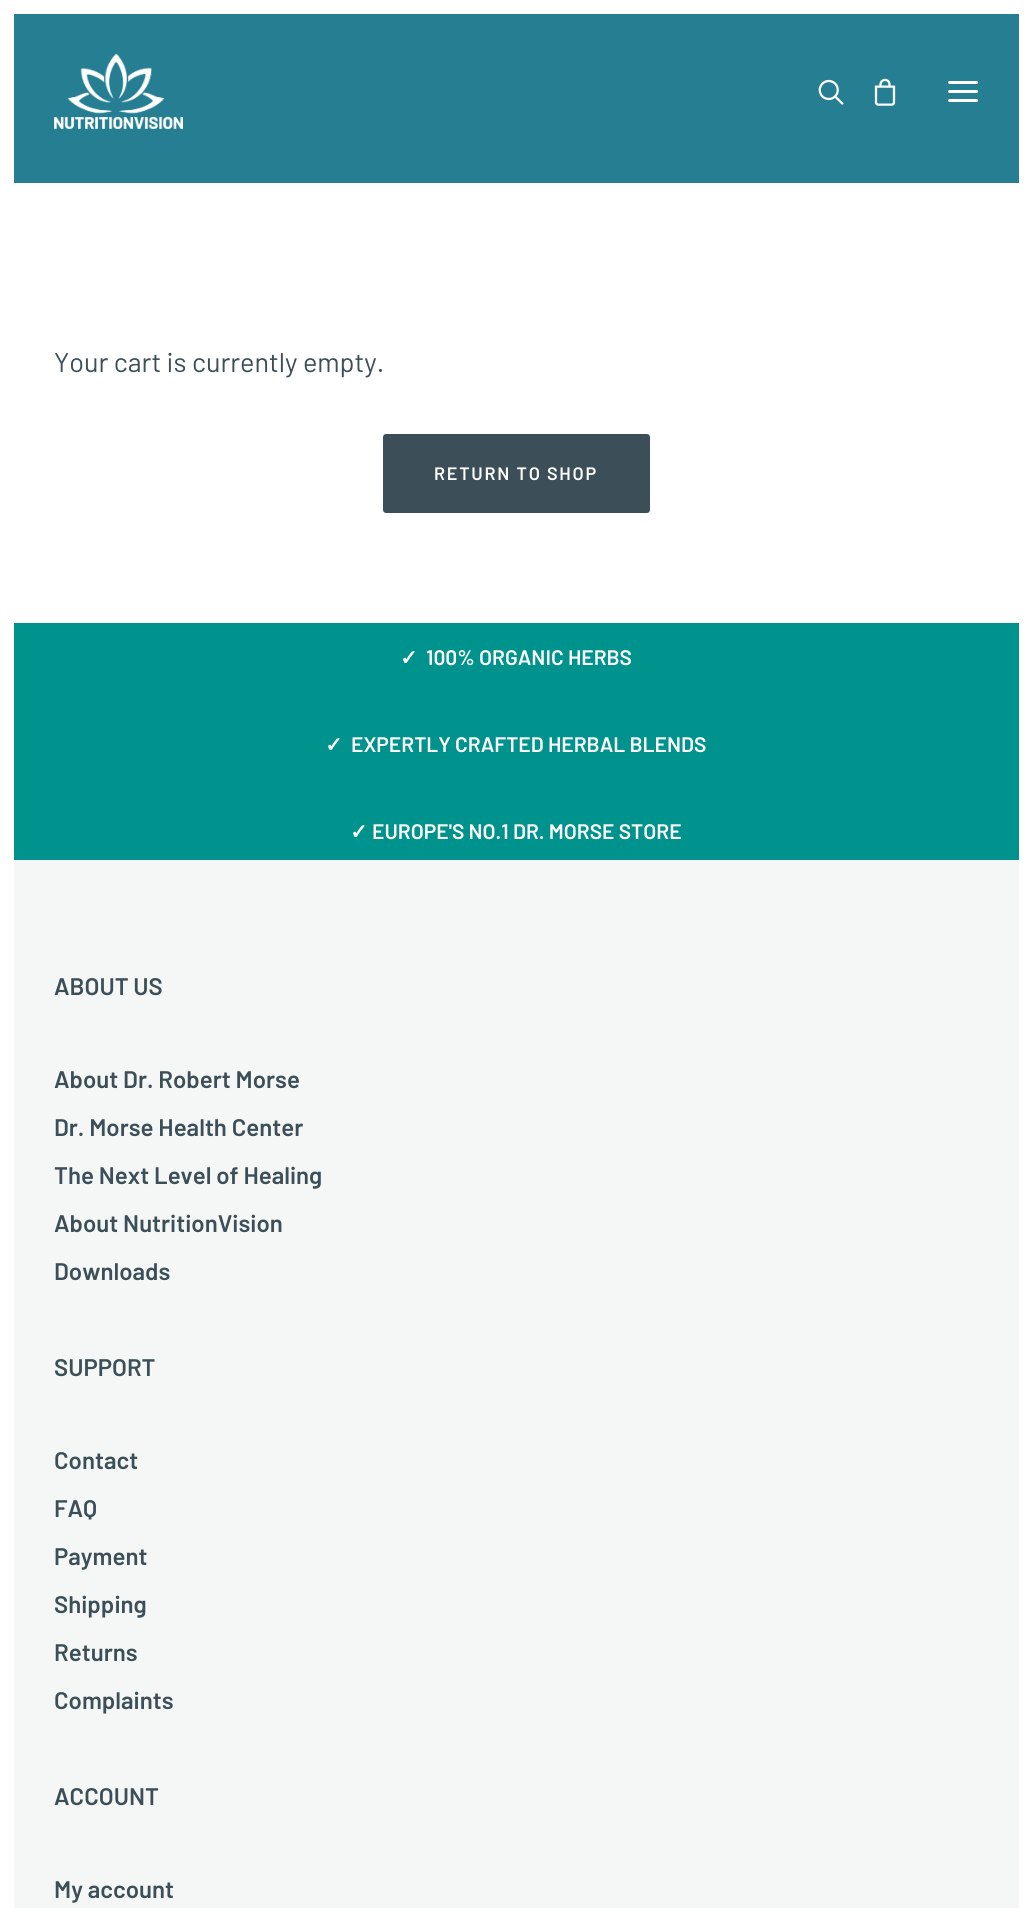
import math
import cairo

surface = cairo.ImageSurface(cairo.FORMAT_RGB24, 1031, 1921)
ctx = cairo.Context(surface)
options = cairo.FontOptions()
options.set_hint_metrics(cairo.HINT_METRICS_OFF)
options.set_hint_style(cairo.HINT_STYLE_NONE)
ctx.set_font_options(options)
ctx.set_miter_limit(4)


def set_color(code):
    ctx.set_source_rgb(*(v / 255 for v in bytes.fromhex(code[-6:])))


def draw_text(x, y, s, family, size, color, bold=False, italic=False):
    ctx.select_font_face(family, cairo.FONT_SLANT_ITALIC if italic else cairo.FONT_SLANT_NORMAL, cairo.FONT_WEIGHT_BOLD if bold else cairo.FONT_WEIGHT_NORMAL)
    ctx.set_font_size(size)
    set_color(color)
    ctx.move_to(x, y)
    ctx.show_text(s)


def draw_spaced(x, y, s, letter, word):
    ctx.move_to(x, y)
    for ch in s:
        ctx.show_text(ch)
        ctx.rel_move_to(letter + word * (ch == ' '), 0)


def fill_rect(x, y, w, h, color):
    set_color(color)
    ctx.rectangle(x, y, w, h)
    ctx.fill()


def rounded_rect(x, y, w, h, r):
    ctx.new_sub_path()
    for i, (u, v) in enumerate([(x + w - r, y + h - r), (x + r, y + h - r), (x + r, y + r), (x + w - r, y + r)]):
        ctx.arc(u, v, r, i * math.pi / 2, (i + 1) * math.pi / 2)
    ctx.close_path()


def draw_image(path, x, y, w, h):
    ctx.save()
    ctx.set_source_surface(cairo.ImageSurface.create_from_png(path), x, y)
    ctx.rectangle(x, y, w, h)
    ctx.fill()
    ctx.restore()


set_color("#257e92")
ctx.paint()
fill_rect(0, 0, 14, 1921, "#ffffff")
fill_rect(14, 0, 1005, 14, "#ffffff")
fill_rect(1019, 0, 12, 1908, "#ffffff")
fill_rect(14, 1908, 1017, 13, "#ffffff")
draw_image("assets/img1.png", 54, 54, 129, 75)
draw_image("assets/img2.png", 818, 79, 26, 26)
draw_image("assets/img3.png", 874, 78, 22, 28)
rounded_rect(948, 90, 30, 3, 1.5)
ctx.fill()
rounded_rect(948, 81, 30, 3, 1.5)
ctx.fill()
rounded_rect(948, 99, 30, 3, 1.5)
ctx.fill()
fill_rect(14, 183, 1005, 440, "#ffffff")
draw_text(54, 372, "Your cart is currently empty.", "Barlow", 27, "#3c4e57")
rounded_rect(385.5, 436.5, 262, 74, 0.5)
ctx.fill_preserve()
ctx.set_line_width(5)
ctx.stroke()
ctx.select_font_face("Barlow SemiBold")
ctx.set_font_size(18)
set_color("#ffffff")
draw_spaced(434, 480, "RETURN TO SHOP", 1.75, 0)
fill_rect(14, 623, 1005, 237, "#00938d")
draw_text(400, 665, "✓", "DejaVu Sans", 21, "#ffffff", bold=True)
draw_text(426, 665, "100% ORGANIC HERBS", "Barlow SemiBold", 21, "#ffffff")
draw_text(325, 752, "✓", "DejaVu Sans", 21, "#ffffff", bold=True)
draw_text(351, 752, "EXPERTLY CRAFTED HERBAL BLENDS", "Barlow SemiBold", 21, "#ffffff")
draw_text(350, 839, "✓", "DejaVu Sans", 21, "#ffffff", bold=True)
draw_text(372, 839, "EUROPE'S NO.1 DR. MORSE STORE", "Barlow SemiBold", 21, "#ffffff")
fill_rect(14, 860, 1005, 1048, "#f4f7f6")
draw_text(54, 995, "ABOUT US", "Barlow SemiBold", 24, "#3c4e57")
draw_text(54, 1088, "About Dr. Robert Morse", "Barlow SemiBold", 24, "#3c4e57")
draw_text(54, 1136, "Dr. Morse Health Center", "Barlow SemiBold", 24, "#3c4e57")
draw_text(54, 1184, "The Next Level of Healing", "Barlow SemiBold", 24, "#3c4e57")
draw_text(54, 1232, "About NutritionVision", "Barlow SemiBold", 24, "#3c4e57")
draw_text(54, 1280, "Downloads", "Barlow SemiBold", 24, "#3c4e57")
draw_text(54, 1376, "SUPPORT", "Barlow SemiBold", 24, "#3c4e57")
draw_text(54, 1469, "Contact", "Barlow SemiBold", 24, "#3c4e57")
draw_text(54, 1517, "FAQ", "Barlow SemiBold", 24, "#3c4e57")
draw_text(54, 1565, "Payment", "Barlow SemiBold", 24, "#3c4e57")
draw_text(54, 1613, "Shipping", "Barlow SemiBold", 24, "#3c4e57")
draw_text(54, 1661, "Returns", "Barlow SemiBold", 24, "#3c4e57")
draw_text(54, 1709, "Complaints", "Barlow SemiBold", 24, "#3c4e57")
draw_text(54, 1805, "ACCOUNT", "Barlow SemiBold", 24, "#3c4e57")
draw_text(54, 1898, "My account", "Barlow SemiBold", 24, "#3c4e57")
surface.write_to_png("output.png")
